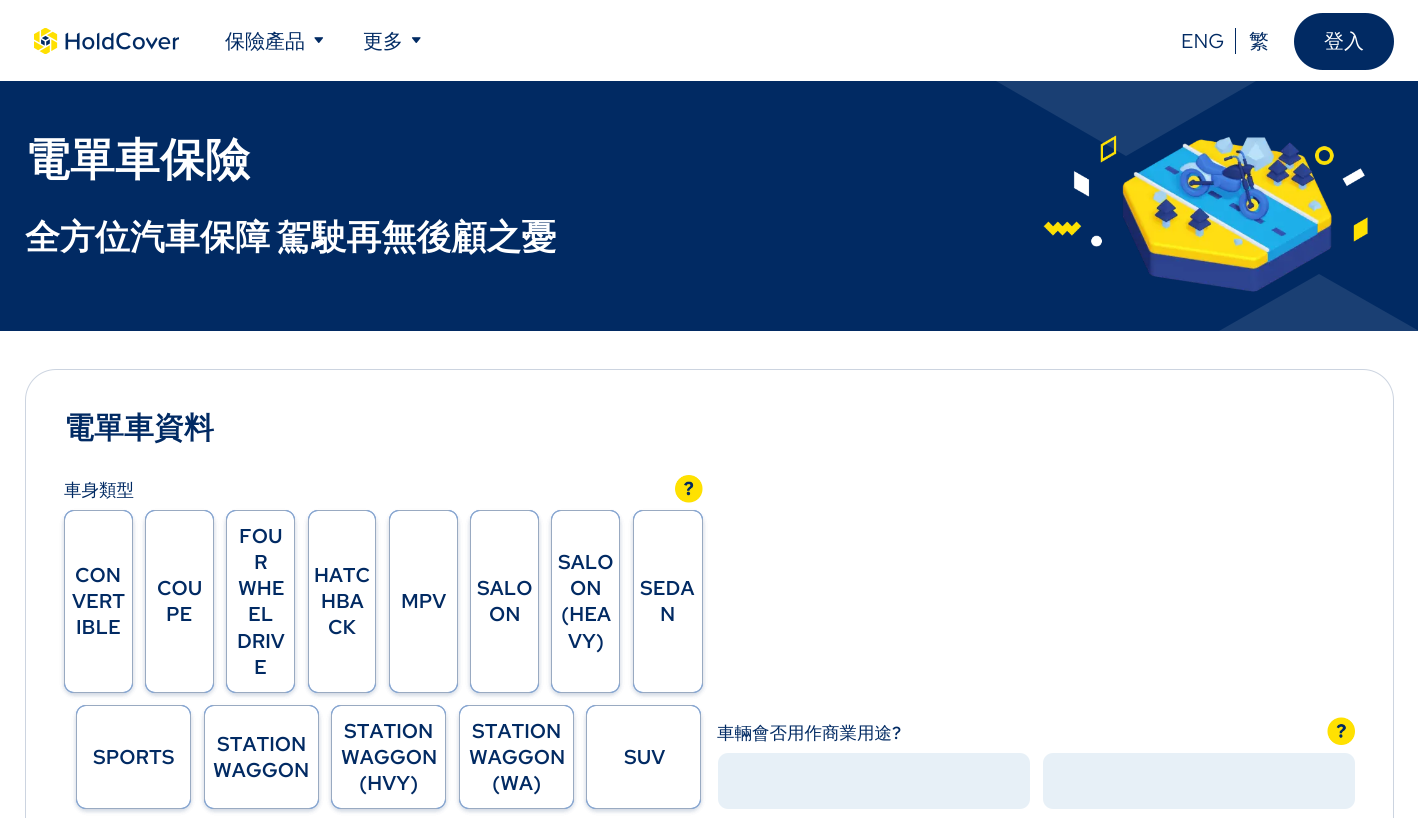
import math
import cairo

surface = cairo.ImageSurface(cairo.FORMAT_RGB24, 1418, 818)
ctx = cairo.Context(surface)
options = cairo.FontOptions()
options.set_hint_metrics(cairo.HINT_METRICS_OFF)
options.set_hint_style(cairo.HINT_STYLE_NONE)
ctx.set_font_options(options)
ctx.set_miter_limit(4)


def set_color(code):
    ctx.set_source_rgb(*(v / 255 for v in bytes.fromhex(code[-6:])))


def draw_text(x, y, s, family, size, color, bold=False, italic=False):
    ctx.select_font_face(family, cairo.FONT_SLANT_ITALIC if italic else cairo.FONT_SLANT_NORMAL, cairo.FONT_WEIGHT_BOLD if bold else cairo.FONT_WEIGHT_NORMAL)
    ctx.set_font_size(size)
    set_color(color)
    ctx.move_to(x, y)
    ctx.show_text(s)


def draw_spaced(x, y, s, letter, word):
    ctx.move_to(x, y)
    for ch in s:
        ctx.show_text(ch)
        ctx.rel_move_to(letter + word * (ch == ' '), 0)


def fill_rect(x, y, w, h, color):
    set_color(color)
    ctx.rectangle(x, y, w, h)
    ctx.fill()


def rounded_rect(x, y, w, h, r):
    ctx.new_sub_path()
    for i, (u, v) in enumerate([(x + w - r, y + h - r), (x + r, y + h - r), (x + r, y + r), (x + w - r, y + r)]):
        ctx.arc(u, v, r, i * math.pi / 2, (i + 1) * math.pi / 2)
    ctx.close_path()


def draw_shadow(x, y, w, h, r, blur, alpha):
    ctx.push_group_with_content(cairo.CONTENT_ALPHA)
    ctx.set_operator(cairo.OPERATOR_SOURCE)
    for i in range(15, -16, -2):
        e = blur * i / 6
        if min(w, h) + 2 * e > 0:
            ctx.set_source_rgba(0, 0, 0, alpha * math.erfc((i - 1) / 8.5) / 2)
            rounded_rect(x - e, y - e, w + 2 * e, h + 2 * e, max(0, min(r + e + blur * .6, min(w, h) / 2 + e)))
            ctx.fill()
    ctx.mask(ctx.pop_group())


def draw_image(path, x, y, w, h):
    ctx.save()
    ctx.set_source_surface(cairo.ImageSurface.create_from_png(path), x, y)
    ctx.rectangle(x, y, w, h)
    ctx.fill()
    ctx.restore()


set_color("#ffffff")
ctx.paint()
draw_image("assets/img1.png", 34, 28, 145, 26)
draw_text(225, 48, "保險產品", "WenQuanYi Zen Hei Medium", 20, "#012a63")
draw_image("assets/img2.png", 314, 37, 10, 6)
draw_text(363, 48, "更多", "WenQuanYi Zen Hei Medium", 20, "#012a63")
draw_image("assets/img3.png", 411, 37, 10, 6)
draw_text(1181, 48, "ENG", "Red Hat Text", 20, "#012a63")
fill_rect(1235, 28, 1, 26, "#012a63")
draw_text(1249, 48, "繁", "WenQuanYi Zen Hei Medium", 20, "#012a63")
rounded_rect(1294, 13, 100, 57, 28.5)
ctx.fill()
draw_text(1324, 48, "登入", "WenQuanYi Zen Hei Medium", 20, "#ffffff")
fill_rect(0, 81, 1418, 250, "#012a63")
set_color("#1a3f73")
ctx.new_path()
ctx.move_to(996, 81)
ctx.line_to(1256, 81)
ctx.line_to(1126, 156)
ctx.close_path()
ctx.fill()
draw_text(25, 175, "電單車保險", "WenQuanYi Zen Hei", 45, "#ffffff", bold=True)
ctx.set_font_size(35)
draw_spaced(25, 249, "全方位汽車保障 駕駛再無後顧之憂", 0, -4)
set_color("#1a3f73")
ctx.new_path()
ctx.move_to(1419, 331)
ctx.line_to(1219, 331)
ctx.line_to(1319, 274)
ctx.close_path()
ctx.fill()
draw_image("assets/img4.png", 1043, 135, 325, 157)
rounded_rect(25.5, 369.5, 1368, 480, 30.5)
set_color("#ccd4e0")
ctx.set_line_width(1)
ctx.stroke()
draw_text(64, 438, "電單車資料", "WenQuanYi Zen Hei", 30, "#012a63", bold=True)
draw_text(64, 496, "車身類型", "WenQuanYi Zen Hei Medium", 17.5, "#012a63")
draw_image("assets/img5.png", 675, 475, 28, 28)
ctx.save()
ctx.set_fill_rule(cairo.FILL_RULE_EVEN_ODD)
ctx.new_path()
ctx.move_to(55, 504)
ctx.line_to(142, 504)
ctx.line_to(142, 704)
ctx.line_to(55, 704)
ctx.close_path()
ctx.move_to(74, 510)
ctx.line_to(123, 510)
ctx.curve_to(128.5, 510, 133, 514.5, 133, 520)
ctx.line_to(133, 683)
ctx.curve_to(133, 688.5, 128.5, 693, 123, 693)
ctx.line_to(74, 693)
ctx.curve_to(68.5, 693, 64, 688.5, 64, 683)
ctx.line_to(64, 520)
ctx.curve_to(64, 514.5, 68.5, 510, 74, 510)
ctx.close_path()
ctx.clip()
set_color("#012a63")
draw_shadow(64, 513, 69, 182, 10, 2.5, 0.12)
ctx.restore()
rounded_rect(64.5, 510.5, 68, 182, 9.5)
set_color("#3485f6")
ctx.stroke()
ctx.save()
ctx.set_fill_rule(cairo.FILL_RULE_EVEN_ODD)
ctx.new_path()
ctx.move_to(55, 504)
ctx.line_to(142, 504)
ctx.line_to(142, 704)
ctx.line_to(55, 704)
ctx.close_path()
ctx.move_to(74, 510)
ctx.line_to(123, 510)
ctx.curve_to(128.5, 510, 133, 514.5, 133, 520)
ctx.line_to(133, 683)
ctx.curve_to(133, 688.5, 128.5, 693, 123, 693)
ctx.line_to(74, 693)
ctx.curve_to(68.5, 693, 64, 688.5, 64, 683)
ctx.line_to(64, 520)
ctx.curve_to(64, 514.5, 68.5, 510, 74, 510)
ctx.close_path()
ctx.clip()
set_color("#012a63")
draw_shadow(64, 513, 69, 182, 10, 2.5, 0.12)
ctx.restore()
rounded_rect(64.5, 510.5, 68, 182, 9.5)
set_color("#99aac1")
ctx.stroke()
draw_text(75, 582, "CON", "Red Hat Text Medium", 20, "#012a63")
draw_text(72, 608, "VERT", "Red Hat Text Medium", 20, "#012a63")
draw_text(76, 634, "IBLE", "Red Hat Text Medium", 20, "#012a63")
ctx.save()
ctx.set_fill_rule(cairo.FILL_RULE_EVEN_ODD)
ctx.new_path()
ctx.move_to(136, 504)
ctx.line_to(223, 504)
ctx.line_to(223, 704)
ctx.line_to(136, 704)
ctx.close_path()
ctx.move_to(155, 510)
ctx.line_to(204, 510)
ctx.curve_to(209.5, 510, 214, 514.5, 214, 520)
ctx.line_to(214, 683)
ctx.curve_to(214, 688.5, 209.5, 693, 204, 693)
ctx.line_to(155, 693)
ctx.curve_to(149.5, 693, 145, 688.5, 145, 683)
ctx.line_to(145, 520)
ctx.curve_to(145, 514.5, 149.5, 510, 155, 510)
ctx.close_path()
ctx.clip()
set_color("#012a63")
draw_shadow(145, 513, 69, 182, 10, 2.5, 0.12)
ctx.restore()
rounded_rect(145.5, 510.5, 68, 182, 9.5)
set_color("#3485f6")
ctx.stroke()
ctx.save()
ctx.set_fill_rule(cairo.FILL_RULE_EVEN_ODD)
ctx.new_path()
ctx.move_to(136, 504)
ctx.line_to(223, 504)
ctx.line_to(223, 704)
ctx.line_to(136, 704)
ctx.close_path()
ctx.move_to(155, 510)
ctx.line_to(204, 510)
ctx.curve_to(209.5, 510, 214, 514.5, 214, 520)
ctx.line_to(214, 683)
ctx.curve_to(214, 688.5, 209.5, 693, 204, 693)
ctx.line_to(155, 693)
ctx.curve_to(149.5, 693, 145, 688.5, 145, 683)
ctx.line_to(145, 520)
ctx.curve_to(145, 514.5, 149.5, 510, 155, 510)
ctx.close_path()
ctx.clip()
set_color("#012a63")
draw_shadow(145, 513, 69, 182, 10, 2.5, 0.12)
ctx.restore()
rounded_rect(145.5, 510.5, 68, 182, 9.5)
set_color("#99aac1")
ctx.stroke()
draw_text(157, 595, "COU", "Red Hat Text Medium", 20, "#012a63")
draw_text(166, 621, "PE", "Red Hat Text Medium", 20, "#012a63")
ctx.save()
ctx.set_fill_rule(cairo.FILL_RULE_EVEN_ODD)
ctx.new_path()
ctx.move_to(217, 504)
ctx.line_to(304, 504)
ctx.line_to(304, 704)
ctx.line_to(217, 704)
ctx.close_path()
ctx.move_to(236, 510)
ctx.line_to(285, 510)
ctx.curve_to(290.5, 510, 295, 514.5, 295, 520)
ctx.line_to(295, 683)
ctx.curve_to(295, 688.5, 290.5, 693, 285, 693)
ctx.line_to(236, 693)
ctx.curve_to(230.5, 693, 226, 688.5, 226, 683)
ctx.line_to(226, 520)
ctx.curve_to(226, 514.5, 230.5, 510, 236, 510)
ctx.close_path()
ctx.clip()
set_color("#012a63")
draw_shadow(226, 513, 69, 182, 10, 2.5, 0.12)
ctx.restore()
rounded_rect(226.5, 510.5, 68, 182, 9.5)
set_color("#3485f6")
ctx.stroke()
ctx.save()
ctx.set_fill_rule(cairo.FILL_RULE_EVEN_ODD)
ctx.new_path()
ctx.move_to(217, 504)
ctx.line_to(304, 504)
ctx.line_to(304, 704)
ctx.line_to(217, 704)
ctx.close_path()
ctx.move_to(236, 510)
ctx.line_to(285, 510)
ctx.curve_to(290.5, 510, 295, 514.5, 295, 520)
ctx.line_to(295, 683)
ctx.curve_to(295, 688.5, 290.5, 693, 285, 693)
ctx.line_to(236, 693)
ctx.curve_to(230.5, 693, 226, 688.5, 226, 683)
ctx.line_to(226, 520)
ctx.curve_to(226, 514.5, 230.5, 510, 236, 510)
ctx.close_path()
ctx.clip()
set_color("#012a63")
draw_shadow(226, 513, 69, 182, 10, 2.5, 0.12)
ctx.restore()
rounded_rect(226.5, 510.5, 68, 182, 9.5)
set_color("#99aac1")
ctx.stroke()
draw_text(239, 543, "FOU", "Red Hat Text Medium", 20, "#012a63")
draw_text(254, 569, "R", "Red Hat Text Medium", 20, "#012a63")
draw_text(238, 595, "WHE", "Red Hat Text Medium", 20, "#012a63")
draw_text(248, 621, "EL", "Red Hat Text Medium", 20, "#012a63")
draw_text(237, 648, "DRIV", "Red Hat Text Medium", 20, "#012a63")
draw_text(254, 674, "E", "Red Hat Text Medium", 20, "#012a63")
ctx.save()
ctx.set_fill_rule(cairo.FILL_RULE_EVEN_ODD)
ctx.new_path()
ctx.move_to(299, 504)
ctx.line_to(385, 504)
ctx.line_to(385, 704)
ctx.line_to(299, 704)
ctx.close_path()
ctx.move_to(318, 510)
ctx.line_to(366, 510)
ctx.curve_to(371.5, 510, 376, 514.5, 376, 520)
ctx.line_to(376, 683)
ctx.curve_to(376, 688.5, 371.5, 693, 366, 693)
ctx.line_to(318, 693)
ctx.curve_to(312.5, 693, 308, 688.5, 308, 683)
ctx.line_to(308, 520)
ctx.curve_to(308, 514.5, 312.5, 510, 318, 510)
ctx.close_path()
ctx.clip()
set_color("#012a63")
draw_shadow(308, 513, 68, 182, 10, 2.5, 0.12)
ctx.restore()
rounded_rect(308.5, 510.5, 67, 182, 9.5)
set_color("#3485f6")
ctx.stroke()
ctx.save()
ctx.set_fill_rule(cairo.FILL_RULE_EVEN_ODD)
ctx.new_path()
ctx.move_to(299, 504)
ctx.line_to(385, 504)
ctx.line_to(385, 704)
ctx.line_to(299, 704)
ctx.close_path()
ctx.move_to(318, 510)
ctx.line_to(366, 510)
ctx.curve_to(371.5, 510, 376, 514.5, 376, 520)
ctx.line_to(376, 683)
ctx.curve_to(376, 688.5, 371.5, 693, 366, 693)
ctx.line_to(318, 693)
ctx.curve_to(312.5, 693, 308, 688.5, 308, 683)
ctx.line_to(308, 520)
ctx.curve_to(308, 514.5, 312.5, 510, 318, 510)
ctx.close_path()
ctx.clip()
set_color("#012a63")
draw_shadow(308, 513, 68, 182, 10, 2.5, 0.12)
ctx.restore()
rounded_rect(308.5, 510.5, 67, 182, 9.5)
set_color("#99aac1")
ctx.stroke()
draw_text(314, 582, "HATC", "Red Hat Text Medium", 20, "#012a63")
draw_text(321, 608, "HBA", "Red Hat Text Medium", 20, "#012a63")
draw_text(328, 634, "CK", "Red Hat Text Medium", 20, "#012a63")
ctx.save()
ctx.set_fill_rule(cairo.FILL_RULE_EVEN_ODD)
ctx.new_path()
ctx.move_to(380, 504)
ctx.line_to(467, 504)
ctx.line_to(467, 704)
ctx.line_to(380, 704)
ctx.close_path()
ctx.move_to(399, 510)
ctx.line_to(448, 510)
ctx.curve_to(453.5, 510, 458, 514.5, 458, 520)
ctx.line_to(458, 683)
ctx.curve_to(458, 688.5, 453.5, 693, 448, 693)
ctx.line_to(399, 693)
ctx.curve_to(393.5, 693, 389, 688.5, 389, 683)
ctx.line_to(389, 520)
ctx.curve_to(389, 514.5, 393.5, 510, 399, 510)
ctx.close_path()
ctx.clip()
set_color("#012a63")
draw_shadow(389, 513, 69, 182, 10, 2.5, 0.12)
ctx.restore()
rounded_rect(389.5, 510.5, 68, 182, 9.5)
set_color("#3485f6")
ctx.stroke()
ctx.save()
ctx.set_fill_rule(cairo.FILL_RULE_EVEN_ODD)
ctx.new_path()
ctx.move_to(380, 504)
ctx.line_to(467, 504)
ctx.line_to(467, 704)
ctx.line_to(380, 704)
ctx.close_path()
ctx.move_to(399, 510)
ctx.line_to(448, 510)
ctx.curve_to(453.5, 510, 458, 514.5, 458, 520)
ctx.line_to(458, 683)
ctx.curve_to(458, 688.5, 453.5, 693, 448, 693)
ctx.line_to(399, 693)
ctx.curve_to(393.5, 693, 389, 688.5, 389, 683)
ctx.line_to(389, 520)
ctx.curve_to(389, 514.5, 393.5, 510, 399, 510)
ctx.close_path()
ctx.clip()
set_color("#012a63")
draw_shadow(389, 513, 69, 182, 10, 2.5, 0.12)
ctx.restore()
rounded_rect(389.5, 510.5, 68, 182, 9.5)
set_color("#99aac1")
ctx.stroke()
draw_text(401, 608, "MPV", "Red Hat Text Medium", 20, "#012a63")
ctx.save()
ctx.set_fill_rule(cairo.FILL_RULE_EVEN_ODD)
ctx.new_path()
ctx.move_to(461, 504)
ctx.line_to(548, 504)
ctx.line_to(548, 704)
ctx.line_to(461, 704)
ctx.close_path()
ctx.move_to(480, 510)
ctx.line_to(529, 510)
ctx.curve_to(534.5, 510, 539, 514.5, 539, 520)
ctx.line_to(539, 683)
ctx.curve_to(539, 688.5, 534.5, 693, 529, 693)
ctx.line_to(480, 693)
ctx.curve_to(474.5, 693, 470, 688.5, 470, 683)
ctx.line_to(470, 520)
ctx.curve_to(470, 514.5, 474.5, 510, 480, 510)
ctx.close_path()
ctx.clip()
set_color("#012a63")
draw_shadow(470, 513, 69, 182, 10, 2.5, 0.12)
ctx.restore()
rounded_rect(470.5, 510.5, 68, 182, 9.5)
set_color("#3485f6")
ctx.stroke()
ctx.save()
ctx.set_fill_rule(cairo.FILL_RULE_EVEN_ODD)
ctx.new_path()
ctx.move_to(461, 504)
ctx.line_to(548, 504)
ctx.line_to(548, 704)
ctx.line_to(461, 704)
ctx.close_path()
ctx.move_to(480, 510)
ctx.line_to(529, 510)
ctx.curve_to(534.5, 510, 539, 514.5, 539, 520)
ctx.line_to(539, 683)
ctx.curve_to(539, 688.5, 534.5, 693, 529, 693)
ctx.line_to(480, 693)
ctx.curve_to(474.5, 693, 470, 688.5, 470, 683)
ctx.line_to(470, 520)
ctx.curve_to(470, 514.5, 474.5, 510, 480, 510)
ctx.close_path()
ctx.clip()
set_color("#012a63")
draw_shadow(470, 513, 69, 182, 10, 2.5, 0.12)
ctx.restore()
rounded_rect(470.5, 510.5, 68, 182, 9.5)
set_color("#99aac1")
ctx.stroke()
draw_text(477, 595, "SALO", "Red Hat Text Medium", 20, "#012a63")
draw_text(489, 621, "ON", "Red Hat Text Medium", 20, "#012a63")
ctx.save()
ctx.set_fill_rule(cairo.FILL_RULE_EVEN_ODD)
ctx.new_path()
ctx.move_to(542, 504)
ctx.line_to(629, 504)
ctx.line_to(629, 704)
ctx.line_to(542, 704)
ctx.close_path()
ctx.move_to(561, 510)
ctx.line_to(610, 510)
ctx.curve_to(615.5, 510, 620, 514.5, 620, 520)
ctx.line_to(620, 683)
ctx.curve_to(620, 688.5, 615.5, 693, 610, 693)
ctx.line_to(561, 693)
ctx.curve_to(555.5, 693, 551, 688.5, 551, 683)
ctx.line_to(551, 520)
ctx.curve_to(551, 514.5, 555.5, 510, 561, 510)
ctx.close_path()
ctx.clip()
set_color("#012a63")
draw_shadow(551, 513, 69, 182, 10, 2.5, 0.12)
ctx.restore()
rounded_rect(551.5, 510.5, 68, 182, 9.5)
set_color("#3485f6")
ctx.stroke()
ctx.save()
ctx.set_fill_rule(cairo.FILL_RULE_EVEN_ODD)
ctx.new_path()
ctx.move_to(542, 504)
ctx.line_to(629, 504)
ctx.line_to(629, 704)
ctx.line_to(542, 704)
ctx.close_path()
ctx.move_to(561, 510)
ctx.line_to(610, 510)
ctx.curve_to(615.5, 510, 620, 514.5, 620, 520)
ctx.line_to(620, 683)
ctx.curve_to(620, 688.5, 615.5, 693, 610, 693)
ctx.line_to(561, 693)
ctx.curve_to(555.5, 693, 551, 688.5, 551, 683)
ctx.line_to(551, 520)
ctx.curve_to(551, 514.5, 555.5, 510, 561, 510)
ctx.close_path()
ctx.clip()
set_color("#012a63")
draw_shadow(551, 513, 69, 182, 10, 2.5, 0.12)
ctx.restore()
rounded_rect(551.5, 510.5, 68, 182, 9.5)
set_color("#99aac1")
ctx.stroke()
draw_text(558, 569, "SALO", "Red Hat Text Medium", 20, "#012a63")
draw_text(570, 595, "ON", "Red Hat Text Medium", 20, "#012a63")
draw_text(561, 621, "(HEA", "Red Hat Text Medium", 20, "#012a63")
draw_text(568, 648, "VY)", "Red Hat Text Medium", 20, "#012a63")
ctx.save()
ctx.set_fill_rule(cairo.FILL_RULE_EVEN_ODD)
ctx.new_path()
ctx.move_to(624, 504)
ctx.line_to(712, 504)
ctx.line_to(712, 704)
ctx.line_to(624, 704)
ctx.close_path()
ctx.move_to(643, 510)
ctx.line_to(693, 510)
ctx.curve_to(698.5, 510, 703, 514.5, 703, 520)
ctx.line_to(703, 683)
ctx.curve_to(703, 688.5, 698.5, 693, 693, 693)
ctx.line_to(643, 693)
ctx.curve_to(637.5, 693, 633, 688.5, 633, 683)
ctx.line_to(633, 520)
ctx.curve_to(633, 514.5, 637.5, 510, 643, 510)
ctx.close_path()
ctx.clip()
set_color("#012a63")
draw_shadow(633, 513, 70, 182, 10, 2.5, 0.12)
ctx.restore()
rounded_rect(633.5, 510.5, 69, 182, 9.5)
set_color("#3485f6")
ctx.stroke()
ctx.save()
ctx.set_fill_rule(cairo.FILL_RULE_EVEN_ODD)
ctx.new_path()
ctx.move_to(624, 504)
ctx.line_to(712, 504)
ctx.line_to(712, 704)
ctx.line_to(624, 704)
ctx.close_path()
ctx.move_to(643, 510)
ctx.line_to(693, 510)
ctx.curve_to(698.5, 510, 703, 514.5, 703, 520)
ctx.line_to(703, 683)
ctx.curve_to(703, 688.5, 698.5, 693, 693, 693)
ctx.line_to(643, 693)
ctx.curve_to(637.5, 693, 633, 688.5, 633, 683)
ctx.line_to(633, 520)
ctx.curve_to(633, 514.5, 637.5, 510, 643, 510)
ctx.close_path()
ctx.clip()
set_color("#012a63")
draw_shadow(633, 513, 70, 182, 10, 2.5, 0.12)
ctx.restore()
rounded_rect(633.5, 510.5, 69, 182, 9.5)
set_color("#99aac1")
ctx.stroke()
draw_text(640, 595, "SEDA", "Red Hat Text Medium", 20, "#012a63")
draw_text(660, 621, "N", "Red Hat Text Medium", 20, "#012a63")
ctx.save()
ctx.set_fill_rule(cairo.FILL_RULE_EVEN_ODD)
ctx.new_path()
ctx.move_to(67, 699)
ctx.line_to(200, 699)
ctx.line_to(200, 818)
ctx.line_to(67, 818)
ctx.close_path()
ctx.move_to(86, 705)
ctx.line_to(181, 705)
ctx.curve_to(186.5, 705, 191, 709.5, 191, 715)
ctx.line_to(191, 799)
ctx.curve_to(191, 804.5, 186.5, 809, 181, 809)
ctx.line_to(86, 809)
ctx.curve_to(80.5, 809, 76, 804.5, 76, 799)
ctx.line_to(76, 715)
ctx.curve_to(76, 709.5, 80.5, 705, 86, 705)
ctx.close_path()
ctx.clip()
set_color("#012a63")
draw_shadow(76, 708, 115, 103, 10, 2.5, 0.12)
ctx.restore()
rounded_rect(76.5, 705.5, 114, 103, 9.5)
set_color("#3485f6")
ctx.stroke()
ctx.save()
ctx.set_fill_rule(cairo.FILL_RULE_EVEN_ODD)
ctx.new_path()
ctx.move_to(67, 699)
ctx.line_to(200, 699)
ctx.line_to(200, 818)
ctx.line_to(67, 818)
ctx.close_path()
ctx.move_to(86, 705)
ctx.line_to(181, 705)
ctx.curve_to(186.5, 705, 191, 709.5, 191, 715)
ctx.line_to(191, 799)
ctx.curve_to(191, 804.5, 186.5, 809, 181, 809)
ctx.line_to(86, 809)
ctx.curve_to(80.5, 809, 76, 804.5, 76, 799)
ctx.line_to(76, 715)
ctx.curve_to(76, 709.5, 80.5, 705, 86, 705)
ctx.close_path()
ctx.clip()
set_color("#012a63")
draw_shadow(76, 708, 115, 103, 10, 2.5, 0.12)
ctx.restore()
rounded_rect(76.5, 705.5, 114, 103, 9.5)
set_color("#99aac1")
ctx.stroke()
draw_text(93, 764, "SPORTS", "Red Hat Text Medium", 20, "#012a63")
ctx.save()
ctx.set_fill_rule(cairo.FILL_RULE_EVEN_ODD)
ctx.new_path()
ctx.move_to(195, 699)
ctx.line_to(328, 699)
ctx.line_to(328, 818)
ctx.line_to(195, 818)
ctx.close_path()
ctx.move_to(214, 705)
ctx.line_to(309, 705)
ctx.curve_to(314.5, 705, 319, 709.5, 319, 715)
ctx.line_to(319, 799)
ctx.curve_to(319, 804.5, 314.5, 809, 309, 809)
ctx.line_to(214, 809)
ctx.curve_to(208.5, 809, 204, 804.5, 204, 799)
ctx.line_to(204, 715)
ctx.curve_to(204, 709.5, 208.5, 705, 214, 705)
ctx.close_path()
ctx.clip()
set_color("#012a63")
draw_shadow(204, 708, 115, 103, 10, 2.5, 0.12)
ctx.restore()
rounded_rect(204.5, 705.5, 114, 103, 9.5)
set_color("#3485f6")
ctx.stroke()
ctx.save()
ctx.set_fill_rule(cairo.FILL_RULE_EVEN_ODD)
ctx.new_path()
ctx.move_to(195, 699)
ctx.line_to(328, 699)
ctx.line_to(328, 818)
ctx.line_to(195, 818)
ctx.close_path()
ctx.move_to(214, 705)
ctx.line_to(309, 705)
ctx.curve_to(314.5, 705, 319, 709.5, 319, 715)
ctx.line_to(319, 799)
ctx.curve_to(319, 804.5, 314.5, 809, 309, 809)
ctx.line_to(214, 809)
ctx.curve_to(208.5, 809, 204, 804.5, 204, 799)
ctx.line_to(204, 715)
ctx.curve_to(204, 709.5, 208.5, 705, 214, 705)
ctx.close_path()
ctx.clip()
set_color("#012a63")
draw_shadow(204, 708, 115, 103, 10, 2.5, 0.12)
ctx.restore()
rounded_rect(204.5, 705.5, 114, 103, 9.5)
set_color("#99aac1")
ctx.stroke()
draw_text(217, 751, "STATION", "Red Hat Text Medium", 20, "#012a63")
draw_text(213, 777, "WAGGON", "Red Hat Text Medium", 20, "#012a63")
ctx.save()
ctx.set_fill_rule(cairo.FILL_RULE_EVEN_ODD)
ctx.new_path()
ctx.move_to(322, 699)
ctx.line_to(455, 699)
ctx.line_to(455, 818)
ctx.line_to(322, 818)
ctx.close_path()
ctx.move_to(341, 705)
ctx.line_to(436, 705)
ctx.curve_to(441.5, 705, 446, 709.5, 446, 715)
ctx.line_to(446, 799)
ctx.curve_to(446, 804.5, 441.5, 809, 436, 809)
ctx.line_to(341, 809)
ctx.curve_to(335.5, 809, 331, 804.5, 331, 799)
ctx.line_to(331, 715)
ctx.curve_to(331, 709.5, 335.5, 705, 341, 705)
ctx.close_path()
ctx.clip()
set_color("#012a63")
draw_shadow(331, 708, 115, 103, 10, 2.5, 0.12)
ctx.restore()
rounded_rect(331.5, 705.5, 114, 103, 9.5)
set_color("#3485f6")
ctx.stroke()
ctx.save()
ctx.set_fill_rule(cairo.FILL_RULE_EVEN_ODD)
ctx.new_path()
ctx.move_to(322, 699)
ctx.line_to(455, 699)
ctx.line_to(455, 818)
ctx.line_to(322, 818)
ctx.close_path()
ctx.move_to(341, 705)
ctx.line_to(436, 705)
ctx.curve_to(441.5, 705, 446, 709.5, 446, 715)
ctx.line_to(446, 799)
ctx.curve_to(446, 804.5, 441.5, 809, 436, 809)
ctx.line_to(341, 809)
ctx.curve_to(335.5, 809, 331, 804.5, 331, 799)
ctx.line_to(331, 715)
ctx.curve_to(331, 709.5, 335.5, 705, 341, 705)
ctx.close_path()
ctx.clip()
set_color("#012a63")
draw_shadow(331, 708, 115, 103, 10, 2.5, 0.12)
ctx.restore()
rounded_rect(331.5, 705.5, 114, 103, 9.5)
set_color("#99aac1")
ctx.stroke()
draw_text(344, 738, "STATION", "Red Hat Text Medium", 20, "#012a63")
draw_text(341, 764, "WAGGON", "Red Hat Text Medium", 20, "#012a63")
draw_text(359, 790, "(HVY)", "Red Hat Text Medium", 20, "#012a63")
ctx.save()
ctx.set_fill_rule(cairo.FILL_RULE_EVEN_ODD)
ctx.new_path()
ctx.move_to(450, 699)
ctx.line_to(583, 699)
ctx.line_to(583, 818)
ctx.line_to(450, 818)
ctx.close_path()
ctx.move_to(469, 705)
ctx.line_to(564, 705)
ctx.curve_to(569.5, 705, 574, 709.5, 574, 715)
ctx.line_to(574, 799)
ctx.curve_to(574, 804.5, 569.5, 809, 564, 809)
ctx.line_to(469, 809)
ctx.curve_to(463.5, 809, 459, 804.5, 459, 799)
ctx.line_to(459, 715)
ctx.curve_to(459, 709.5, 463.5, 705, 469, 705)
ctx.close_path()
ctx.clip()
set_color("#012a63")
draw_shadow(459, 708, 115, 103, 10, 2.5, 0.12)
ctx.restore()
rounded_rect(459.5, 705.5, 114, 103, 9.5)
set_color("#3485f6")
ctx.stroke()
ctx.save()
ctx.set_fill_rule(cairo.FILL_RULE_EVEN_ODD)
ctx.new_path()
ctx.move_to(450, 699)
ctx.line_to(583, 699)
ctx.line_to(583, 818)
ctx.line_to(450, 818)
ctx.close_path()
ctx.move_to(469, 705)
ctx.line_to(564, 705)
ctx.curve_to(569.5, 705, 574, 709.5, 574, 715)
ctx.line_to(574, 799)
ctx.curve_to(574, 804.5, 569.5, 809, 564, 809)
ctx.line_to(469, 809)
ctx.curve_to(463.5, 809, 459, 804.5, 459, 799)
ctx.line_to(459, 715)
ctx.curve_to(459, 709.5, 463.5, 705, 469, 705)
ctx.close_path()
ctx.clip()
set_color("#012a63")
draw_shadow(459, 708, 115, 103, 10, 2.5, 0.12)
ctx.restore()
rounded_rect(459.5, 705.5, 114, 103, 9.5)
set_color("#99aac1")
ctx.stroke()
draw_text(472, 738, "STATION", "Red Hat Text Medium", 20, "#012a63")
draw_text(469, 764, "WAGGON", "Red Hat Text Medium", 20, "#012a63")
draw_text(492, 790, "(WA)", "Red Hat Text Medium", 20, "#012a63")
ctx.save()
ctx.set_fill_rule(cairo.FILL_RULE_EVEN_ODD)
ctx.new_path()
ctx.move_to(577, 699)
ctx.line_to(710, 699)
ctx.line_to(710, 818)
ctx.line_to(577, 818)
ctx.close_path()
ctx.move_to(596, 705)
ctx.line_to(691, 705)
ctx.curve_to(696.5, 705, 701, 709.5, 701, 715)
ctx.line_to(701, 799)
ctx.curve_to(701, 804.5, 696.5, 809, 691, 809)
ctx.line_to(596, 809)
ctx.curve_to(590.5, 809, 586, 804.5, 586, 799)
ctx.line_to(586, 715)
ctx.curve_to(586, 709.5, 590.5, 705, 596, 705)
ctx.close_path()
ctx.clip()
set_color("#012a63")
draw_shadow(586, 708, 115, 103, 10, 2.5, 0.12)
ctx.restore()
rounded_rect(586.5, 705.5, 114, 103, 9.5)
set_color("#3485f6")
ctx.stroke()
ctx.save()
ctx.set_fill_rule(cairo.FILL_RULE_EVEN_ODD)
ctx.new_path()
ctx.move_to(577, 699)
ctx.line_to(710, 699)
ctx.line_to(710, 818)
ctx.line_to(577, 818)
ctx.close_path()
ctx.move_to(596, 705)
ctx.line_to(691, 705)
ctx.curve_to(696.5, 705, 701, 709.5, 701, 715)
ctx.line_to(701, 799)
ctx.curve_to(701, 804.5, 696.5, 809, 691, 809)
ctx.line_to(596, 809)
ctx.curve_to(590.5, 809, 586, 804.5, 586, 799)
ctx.line_to(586, 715)
ctx.curve_to(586, 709.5, 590.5, 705, 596, 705)
ctx.close_path()
ctx.clip()
set_color("#012a63")
draw_shadow(586, 708, 115, 103, 10, 2.5, 0.12)
ctx.restore()
rounded_rect(586.5, 705.5, 114, 103, 9.5)
set_color("#99aac1")
ctx.stroke()
draw_text(624, 764, "SUV", "Red Hat Text Medium", 20, "#012a63")
draw_text(717, 739, "車輛會否用作商業用途", "WenQuanYi Zen Hei Medium", 17.5, "#012a63")
draw_text(892, 739, "?", "Red Hat Text Medium", 17.5, "#012a63")
draw_image("assets/img6.png", 1327, 717, 28, 28)
set_color("#e7f0f7")
rounded_rect(718, 753, 312, 56, 10)
ctx.fill()
rounded_rect(1043, 753, 312, 56, 10)
ctx.fill()
surface.write_to_png("output.png")
